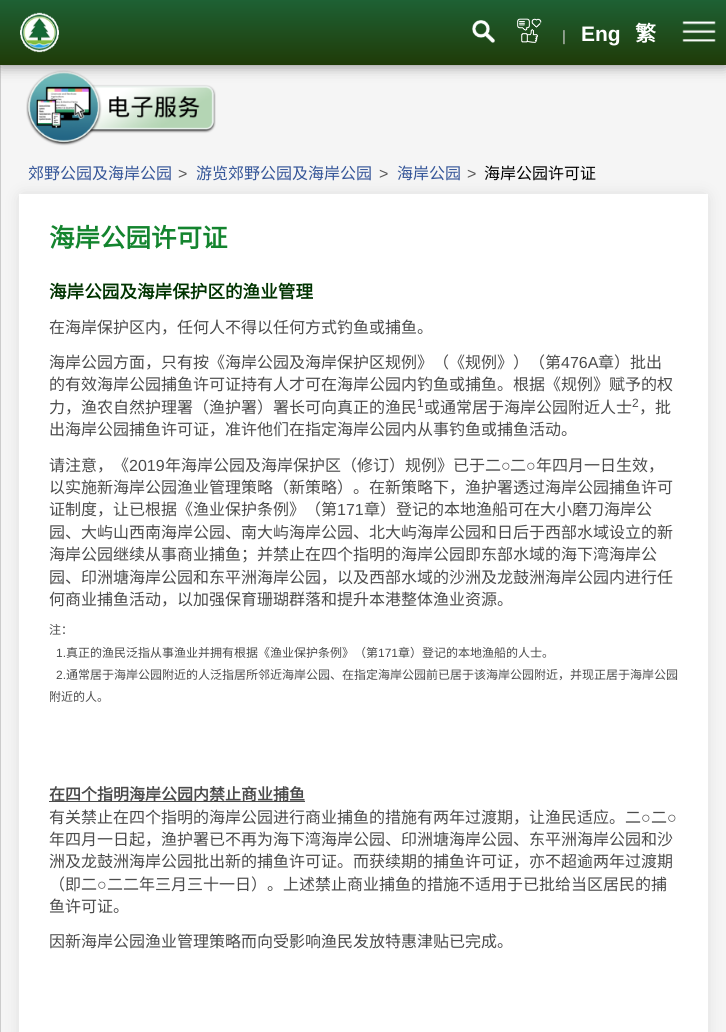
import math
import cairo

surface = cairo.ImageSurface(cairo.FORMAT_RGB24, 726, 1032)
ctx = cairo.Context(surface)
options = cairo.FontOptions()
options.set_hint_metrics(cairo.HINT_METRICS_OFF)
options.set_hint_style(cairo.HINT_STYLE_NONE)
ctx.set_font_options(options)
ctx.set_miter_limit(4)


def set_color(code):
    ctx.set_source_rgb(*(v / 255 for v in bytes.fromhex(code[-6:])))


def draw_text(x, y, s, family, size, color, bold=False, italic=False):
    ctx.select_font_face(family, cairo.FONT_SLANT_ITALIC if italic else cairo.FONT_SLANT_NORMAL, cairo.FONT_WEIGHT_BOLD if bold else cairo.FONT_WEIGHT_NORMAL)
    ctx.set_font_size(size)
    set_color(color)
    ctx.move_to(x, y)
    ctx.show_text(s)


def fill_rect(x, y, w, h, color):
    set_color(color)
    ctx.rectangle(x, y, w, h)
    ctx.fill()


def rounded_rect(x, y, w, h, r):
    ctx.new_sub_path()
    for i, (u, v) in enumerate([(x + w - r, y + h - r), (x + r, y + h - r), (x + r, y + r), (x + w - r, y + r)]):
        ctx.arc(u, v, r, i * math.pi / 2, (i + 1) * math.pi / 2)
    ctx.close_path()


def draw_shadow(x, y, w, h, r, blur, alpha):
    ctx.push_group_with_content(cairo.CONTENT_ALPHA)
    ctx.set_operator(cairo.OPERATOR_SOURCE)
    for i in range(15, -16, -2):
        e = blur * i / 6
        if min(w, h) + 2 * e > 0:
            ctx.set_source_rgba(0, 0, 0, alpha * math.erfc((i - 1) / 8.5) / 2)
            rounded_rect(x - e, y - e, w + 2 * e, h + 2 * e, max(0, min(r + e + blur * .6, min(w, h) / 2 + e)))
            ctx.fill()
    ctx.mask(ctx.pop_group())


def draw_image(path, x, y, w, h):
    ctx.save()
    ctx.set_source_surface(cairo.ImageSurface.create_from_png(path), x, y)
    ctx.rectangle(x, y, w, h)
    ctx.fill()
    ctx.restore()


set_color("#f5f5f5")
ctx.paint()
fill_rect(0, 64, 1, 968, "#cccccc")
draw_image("assets/img5.png", 26, 70, 190, 76)
set_color("#808080")
draw_shadow(0, 0, 726, 65, 0, 7.5, 1)
gradient = cairo.LinearGradient(363, 0, 363, 65)
gradient.add_color_stop_rgba(0, 0.118, 0.38, 0.204, 1)
gradient.add_color_stop_rgba(1, 0.122, 0.231, 0.031, 1)
ctx.set_source(gradient)
ctx.rectangle(0, 0, 726, 65)
ctx.fill()
draw_image("assets/img1.png", 20, 12, 39, 41)
draw_image("assets/img2.png", 472, 20, 23, 23)
draw_image("assets/img3.png", 517, 18, 25, 25)
draw_text(562, 41, "|", "Liberation Sans", 15, "#cccccc")
draw_text(581, 41, "Eng", "Liberation Sans", 21, "#ffffff", bold=True)
draw_text(635, 41, "繁", "Noto Sans CJK HK", 21, "#ffffff", bold=True)
draw_image("assets/img4.png", 682, 21, 34, 21)
set_color("#cccccc")
draw_shadow(23, 198, 681, 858, 0, 8, 1)
draw_text(28, 179, "郊野公园及海岸公园", "Noto Sans CJK SC", 16, "#345598")
draw_text(178, 179, ">", "Liberation Sans", 16, "#595858")
draw_text(196, 179, "游览郊野公园及海岸公园", "Noto Sans CJK SC", 16, "#345598")
draw_text(379, 179, ">", "Liberation Sans", 16, "#595858")
draw_text(397, 179, "海岸公园", "Noto Sans CJK SC", 16, "#345598")
draw_text(467, 179, ">", "Liberation Sans", 16, "#595858")
draw_text(484, 179, "海岸公园许可证", "Noto Sans CJK SC", 16, "#000000")
fill_rect(19, 194, 689, 838, "#ffffff")
draw_text(49, 247, "海岸公园许可证", "Noto Sans CJK SC", 25.5, "#13842e", bold=True)
draw_text(49, 298, "海岸公园及海岸保护区的渔业管理", "Noto Sans CJK SC", 17.6, "#003300", bold=True)
draw_text(49, 333, "在海岸保护区内，任何人不得以任何方式钓鱼或捕鱼。", "Noto Sans CJK SC", 16, "#4b4b4b")
draw_text(49, 368, "海岸公园方面，只有按《海岸公园及海岸保护区规例》（《规例》）（第", "Noto Sans CJK SC", 16, "#4b4b4b")
draw_text(561, 368, "476A", "Liberation Sans", 16, "#4b4b4b")
draw_text(598, 368, "章）批出", "Noto Sans CJK SC", 16, "#4b4b4b")
draw_text(49, 390, "的有效海岸公园捕鱼许可证持有人才可在海岸公园内钓鱼或捕鱼。根据《规例》赋予的权", "Noto Sans CJK SC", 16, "#4b4b4b")
draw_text(49, 413, "力，渔农自然护理署（渔护署）署长可向真正的渔民", "Noto Sans CJK SC", 16, "#4b4b4b")
draw_text(417, 407, "1", "Liberation Sans", 12, "#4b4b4b")
draw_text(424, 413, "或通常居于海岸公园附近人士", "Noto Sans CJK SC", 16, "#4b4b4b")
draw_text(632, 407, "2", "Liberation Sans", 12, "#4b4b4b")
draw_text(639, 413, "，批", "Noto Sans CJK SC", 16, "#4b4b4b")
draw_text(49, 435, "出海岸公园捕鱼许可证，准许他们在指定海岸公园内从事钓鱼或捕鱼活动。", "Noto Sans CJK SC", 16, "#4b4b4b")
draw_text(49, 471, "请注意，《", "Noto Sans CJK SC", 16, "#4b4b4b")
draw_text(129, 471, "2019", "Liberation Sans", 16, "#4b4b4b")
draw_text(165, 471, "年海岸公园及海岸保护区（修订）规例》已于二", "Noto Sans CJK SC", 16, "#4b4b4b")
draw_text(501, 471, "○", "Liberation Sans", 16, "#4b4b4b")
draw_text(510, 471, "二", "Noto Sans CJK SC", 16, "#4b4b4b")
draw_text(526, 471, "○", "Liberation Sans", 16, "#4b4b4b")
draw_text(536, 471, "年四月一日生效，", "Noto Sans CJK SC", 16, "#4b4b4b")
draw_text(49, 493, "以实施新海岸公园渔业管理策略（新策略）。在新策略下，渔护署透过海岸公园捕鱼许可", "Noto Sans CJK SC", 16, "#4b4b4b")
draw_text(49, 515, "证制度，让已根据《渔业保护条例》（第", "Noto Sans CJK SC", 16, "#4b4b4b")
draw_text(337, 515, "171", "Liberation Sans", 16, "#4b4b4b")
draw_text(364, 515, "章）登记的本地渔船可在大小磨刀海岸公", "Noto Sans CJK SC", 16, "#4b4b4b")
draw_text(49, 538, "园、大屿山西南海岸公园、南大屿海岸公园、北大屿海岸公园和日后于西部水域设立的新", "Noto Sans CJK SC", 16, "#4b4b4b")
draw_text(49, 560, "海岸公园继续从事商业捕鱼；并禁止在四个指明的海岸公园即东部水域的海下湾海岸公", "Noto Sans CJK SC", 16, "#4b4b4b")
draw_text(49, 583, "园、印洲塘海岸公园和东平洲海岸公园，以及西部水域的沙洲及龙鼓洲海岸公园内进行任", "Noto Sans CJK SC", 16, "#4b4b4b")
draw_text(49, 605, "何商业捕鱼活动，以加强保育珊瑚群落和提升本港整体渔业资源。", "Noto Sans CJK SC", 16, "#4b4b4b")
draw_text(49, 634, "注：", "Noto Sans CJK SC", 12, "#4b4b4b")
draw_text(56, 657, "1.", "Liberation Sans", 12, "#4b4b4b")
draw_text(66, 657, "真正的渔民泛指从事渔业并拥有根据《渔业保护条例》（第", "Noto Sans CJK SC", 12, "#4b4b4b")
draw_text(378, 657, "171", "Liberation Sans", 12, "#4b4b4b")
draw_text(398, 657, "章）登记的本地渔船的人士。", "Noto Sans CJK SC", 12, "#4b4b4b")
draw_text(56, 679, "2.", "Liberation Sans", 12, "#4b4b4b")
draw_text(66, 679, "通常居于海岸公园附近的人泛指居所邻近海岸公园、在指定海岸公园前已居于该海岸公园附近，并现正居于海岸公园", "Noto Sans CJK SC", 12, "#4b4b4b")
draw_text(49, 701, "附近的人。", "Noto Sans CJK SC", 12, "#4b4b4b")
fill_rect(49, 801, 256, 1, "#4b4b4b")
draw_text(49, 800, "在四个指明海岸公园内禁止商业捕鱼", "Noto Sans CJK SC", 16, "#4b4b4b", bold=True)
draw_text(49, 823, "有关禁止在四个指明的海岸公园进行商业捕鱼的措施有两年过渡期，让渔民适应。二", "Noto Sans CJK SC", 16, "#4b4b4b")
draw_text(641, 823, "○", "Liberation Sans", 16, "#4b4b4b")
draw_text(651, 823, "二", "Noto Sans CJK SC", 16, "#4b4b4b")
draw_text(667, 823, "○", "Liberation Sans", 16, "#4b4b4b")
draw_text(49, 845, "年四月一日起，渔护署已不再为海下湾海岸公园、印洲塘海岸公园、东平洲海岸公园和沙", "Noto Sans CJK SC", 16, "#4b4b4b")
draw_text(49, 867, "洲及龙鼓洲海岸公园批出新的捕鱼许可证。而获续期的捕鱼许可证，亦不超逾两年过渡期", "Noto Sans CJK SC", 16, "#4b4b4b")
draw_text(49, 890, "（即二", "Noto Sans CJK SC", 16, "#4b4b4b")
draw_text(97, 890, "○", "Liberation Sans", 16, "#4b4b4b")
draw_text(107, 890, "二二年三月三十一日）。上述禁止商业捕鱼的措施不适用于已批给当区居民的捕", "Noto Sans CJK SC", 16, "#4b4b4b")
draw_text(49, 912, "鱼许可证。", "Noto Sans CJK SC", 16, "#4b4b4b")
draw_text(49, 947, "因新海岸公园渔业管理策略而向受影响渔民发放特惠津贴已完成。", "Noto Sans CJK SC", 16, "#4b4b4b")
surface.write_to_png("output.png")
